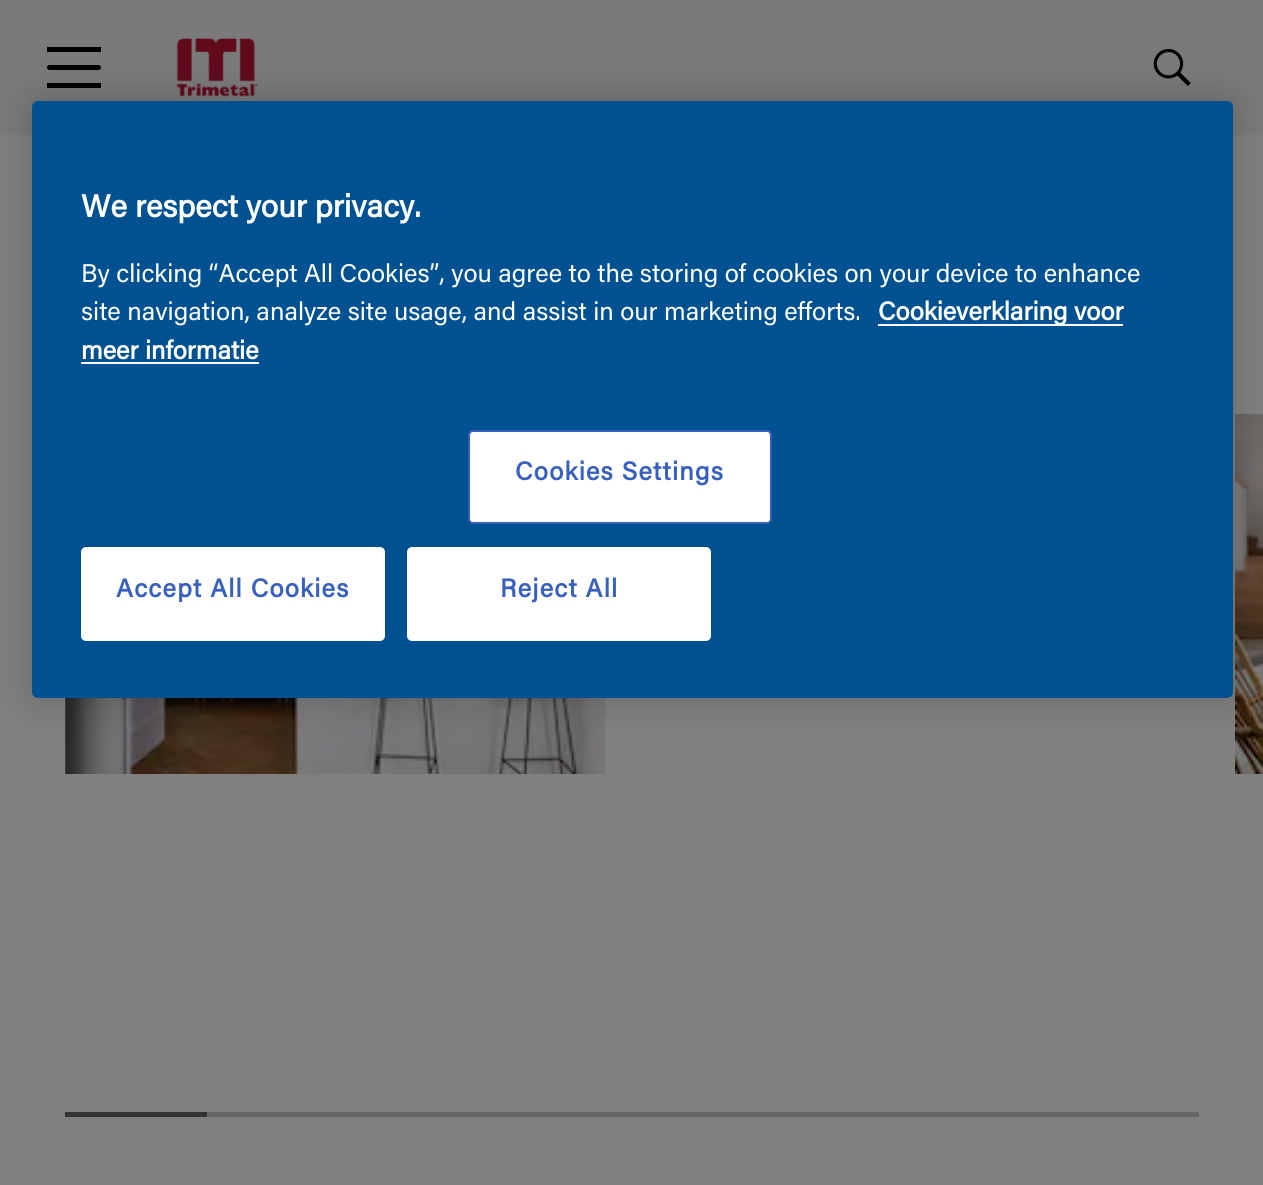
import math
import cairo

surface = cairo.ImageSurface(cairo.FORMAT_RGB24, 1263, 1185)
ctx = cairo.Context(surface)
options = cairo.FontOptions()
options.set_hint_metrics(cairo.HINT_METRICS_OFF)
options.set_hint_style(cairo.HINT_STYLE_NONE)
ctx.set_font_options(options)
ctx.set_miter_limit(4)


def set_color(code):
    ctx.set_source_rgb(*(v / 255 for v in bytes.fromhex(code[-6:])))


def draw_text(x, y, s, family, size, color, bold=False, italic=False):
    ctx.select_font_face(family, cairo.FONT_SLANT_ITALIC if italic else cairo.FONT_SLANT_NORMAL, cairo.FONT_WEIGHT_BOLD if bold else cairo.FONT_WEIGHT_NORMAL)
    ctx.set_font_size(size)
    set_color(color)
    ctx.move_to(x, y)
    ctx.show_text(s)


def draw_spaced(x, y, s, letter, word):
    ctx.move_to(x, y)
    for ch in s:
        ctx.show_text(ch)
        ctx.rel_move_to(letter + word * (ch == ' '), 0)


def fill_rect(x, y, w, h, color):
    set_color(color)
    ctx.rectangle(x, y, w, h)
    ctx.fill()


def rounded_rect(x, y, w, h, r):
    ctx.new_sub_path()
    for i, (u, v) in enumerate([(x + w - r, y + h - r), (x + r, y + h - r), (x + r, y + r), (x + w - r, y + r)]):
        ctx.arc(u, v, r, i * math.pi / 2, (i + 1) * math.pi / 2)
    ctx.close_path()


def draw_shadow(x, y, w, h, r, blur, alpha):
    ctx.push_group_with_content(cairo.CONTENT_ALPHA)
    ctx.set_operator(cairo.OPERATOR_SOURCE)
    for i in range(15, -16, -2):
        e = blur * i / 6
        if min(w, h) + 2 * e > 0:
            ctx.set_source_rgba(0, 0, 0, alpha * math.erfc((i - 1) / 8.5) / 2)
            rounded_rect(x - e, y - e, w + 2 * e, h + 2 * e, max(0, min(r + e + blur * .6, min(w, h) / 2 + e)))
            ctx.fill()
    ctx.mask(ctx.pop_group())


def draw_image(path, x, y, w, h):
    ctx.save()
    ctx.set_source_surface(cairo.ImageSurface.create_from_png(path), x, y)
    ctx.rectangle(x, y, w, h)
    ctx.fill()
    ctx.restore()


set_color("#808080")
ctx.paint()
fill_rect(0, 0, 1263, 135, "#7a7a7a")
set_color("#000000")
rounded_rect(47, 65, 54, 5, 2.5)
ctx.fill()
fill_rect(47, 47, 54, 5, "#000000")
fill_rect(47, 83, 54, 5, "#000000")
draw_image("assets/img1.png", 176, 38, 83, 59)
draw_image("assets/img2.png", 1153, 49, 38, 37)
draw_image("assets/img3.png", 65, 698, 541, 76)
draw_image("assets/img4.png", 1235, 414, 28, 360)
fill_rect(65, 1112, 142, 5, "#333333")
fill_rect(207, 1112, 992, 5, "#676767")
set_color("#000000")
draw_shadow(32, 101, 1201, 597, 6, 20, 0.2)
set_color("#005192")
rounded_rect(32, 101, 1201, 597, 6)
ctx.fill()
draw_text(81, 217, "We respect your privacy.", "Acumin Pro", 31.5, "#ffffff", bold=True)
draw_text(81, 282, "By clicking “Accept All Cookies”, you agree to the storing of cookies on your device to enhance", "Acumin Pro", 25.6, "#ffffff")
draw_text(81, 320, "site navigation, analyze site usage, and assist in our marketing efforts.", "Acumin Pro", 25.6, "#ffffff")
fill_rect(878, 324, 245, 2, "#fafbff")
draw_text(878, 320, "Cookieverklaring voor", "Acumin Pro", 25.6, "#ffffff", bold=True)
draw_text(81, 359, "meer informatie", "Acumin Pro", 25.6, "#ffffff", bold=True)
fill_rect(81, 362, 178, 2, "#fafbff")
set_color("#ffffff")
rounded_rect(469, 431, 302, 92, 4)
ctx.fill_preserve()
set_color("#3860be")
ctx.stroke()
draw_spaced(515, 480, "Cookies Settings", 1.25, 0)
set_color("#ffffff")
rounded_rect(82, 548, 302, 92, 4)
ctx.fill_preserve()
ctx.stroke()
set_color("#3860be")
draw_spaced(116, 597, "Accept All Cookies", 1.25, 0)
set_color("#ffffff")
rounded_rect(408, 548, 302, 92, 4)
ctx.fill_preserve()
ctx.stroke()
set_color("#3860be")
draw_spaced(500, 597, "Reject All", 1.25, 0)
surface.write_to_png("output.png")
